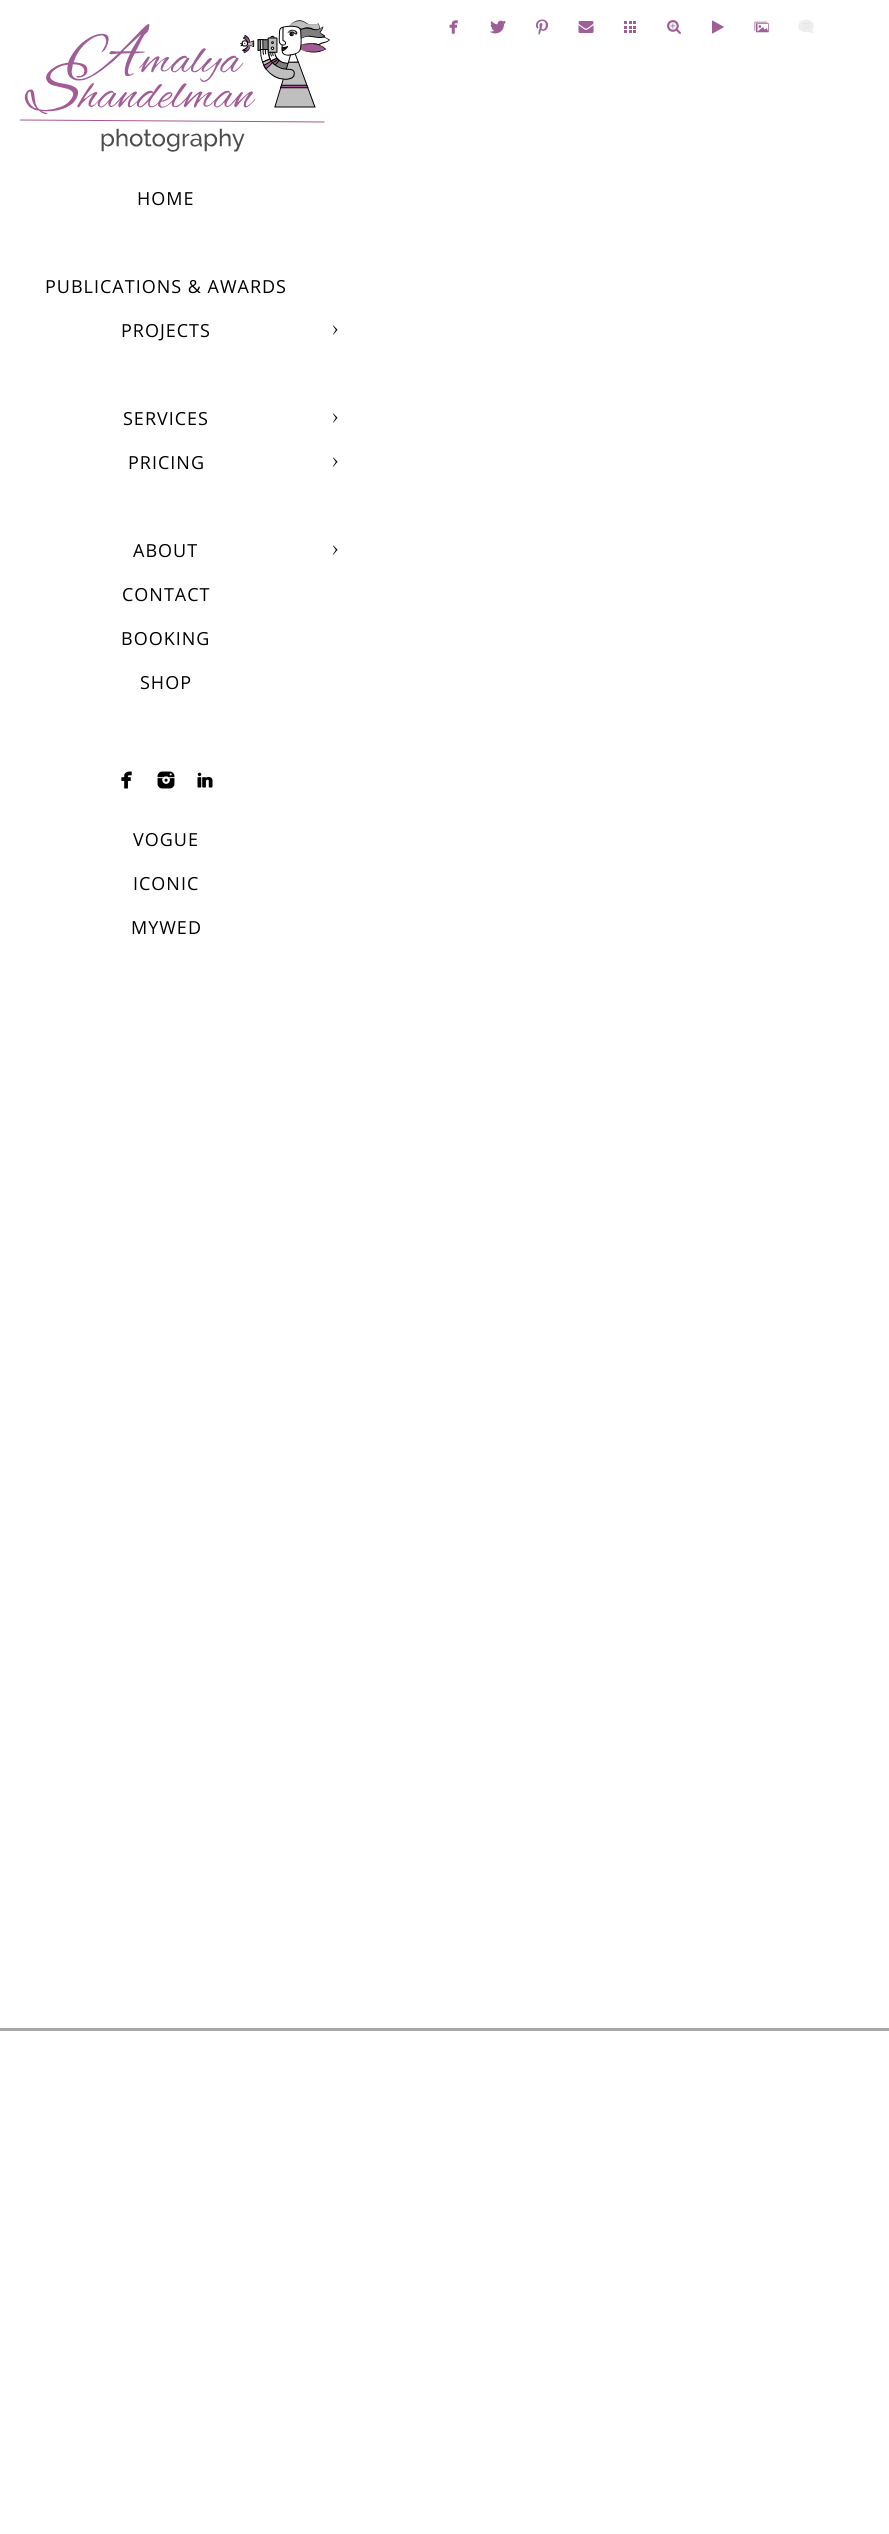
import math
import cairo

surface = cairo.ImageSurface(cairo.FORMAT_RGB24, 889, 2534)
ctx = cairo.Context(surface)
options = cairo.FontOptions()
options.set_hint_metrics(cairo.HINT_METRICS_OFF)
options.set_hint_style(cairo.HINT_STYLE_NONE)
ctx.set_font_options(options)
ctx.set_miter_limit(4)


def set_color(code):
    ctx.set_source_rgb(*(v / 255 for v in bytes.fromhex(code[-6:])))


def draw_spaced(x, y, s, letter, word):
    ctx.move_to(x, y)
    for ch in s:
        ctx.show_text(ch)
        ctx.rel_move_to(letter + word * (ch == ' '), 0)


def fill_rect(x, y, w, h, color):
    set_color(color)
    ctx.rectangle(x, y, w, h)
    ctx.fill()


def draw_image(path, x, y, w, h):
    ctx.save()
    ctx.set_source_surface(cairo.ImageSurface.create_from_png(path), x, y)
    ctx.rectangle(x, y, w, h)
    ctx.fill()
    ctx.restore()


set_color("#ffffff")
ctx.paint()
draw_image("assets/img1.png", 449, 20, 9, 14)
draw_image("assets/img2.png", 490, 20, 16, 14)
draw_image("assets/img3.png", 535, 19, 13, 16)
draw_image("assets/img4.png", 578, 21, 16, 12)
draw_image("assets/img5.png", 624, 21, 12, 12)
draw_image("assets/img6.png", 667, 20, 14, 14)
draw_image("assets/img7.png", 712, 20, 12, 14)
draw_image("assets/img8.png", 754, 21, 15, 12)
draw_image("assets/img9.png", 798, 19, 16, 14)
draw_image("assets/img10.png", 20, 20, 310, 132)
ctx.select_font_face("Open Sans")
ctx.set_font_size(18)
set_color("#000000")
draw_spaced(137, 205, "HOME", 1, 0)
draw_spaced(45, 293, "PUBLICATIONS & AWARDS", 1, 0)
draw_spaced(121, 337, "PROJECTS", 1, 0)
draw_image("assets/img11.png", 332, 325, 6, 10)
draw_spaced(123, 425, "SERVICES", 1, 0)
draw_image("assets/img11.png", 332, 413, 6, 10)
draw_spaced(128, 469, "PRICING", 1, 0)
draw_image("assets/img11.png", 332, 457, 6, 10)
draw_spaced(133, 557, "ABOUT", 1, 0)
draw_image("assets/img11.png", 332, 545, 6, 10)
draw_spaced(122, 601, "CONTACT", 1, 0)
draw_spaced(121, 645, "BOOKING", 1, 0)
draw_spaced(140, 689, "SHOP", 1, 0)
draw_image("assets/img12.png", 121, 771, 11, 18)
draw_image("assets/img13.png", 157, 771, 18, 18)
draw_image("assets/img14.png", 197, 772, 16, 16)
draw_spaced(133, 846, "VOGUE", 1, 0)
draw_spaced(133, 890, "ICONIC", 1, 0)
draw_spaced(131, 934, "MYWED", 1, 0)
fill_rect(0, 2028, 889, 3, "#a9a9a9")
surface.write_to_png("output.png")
